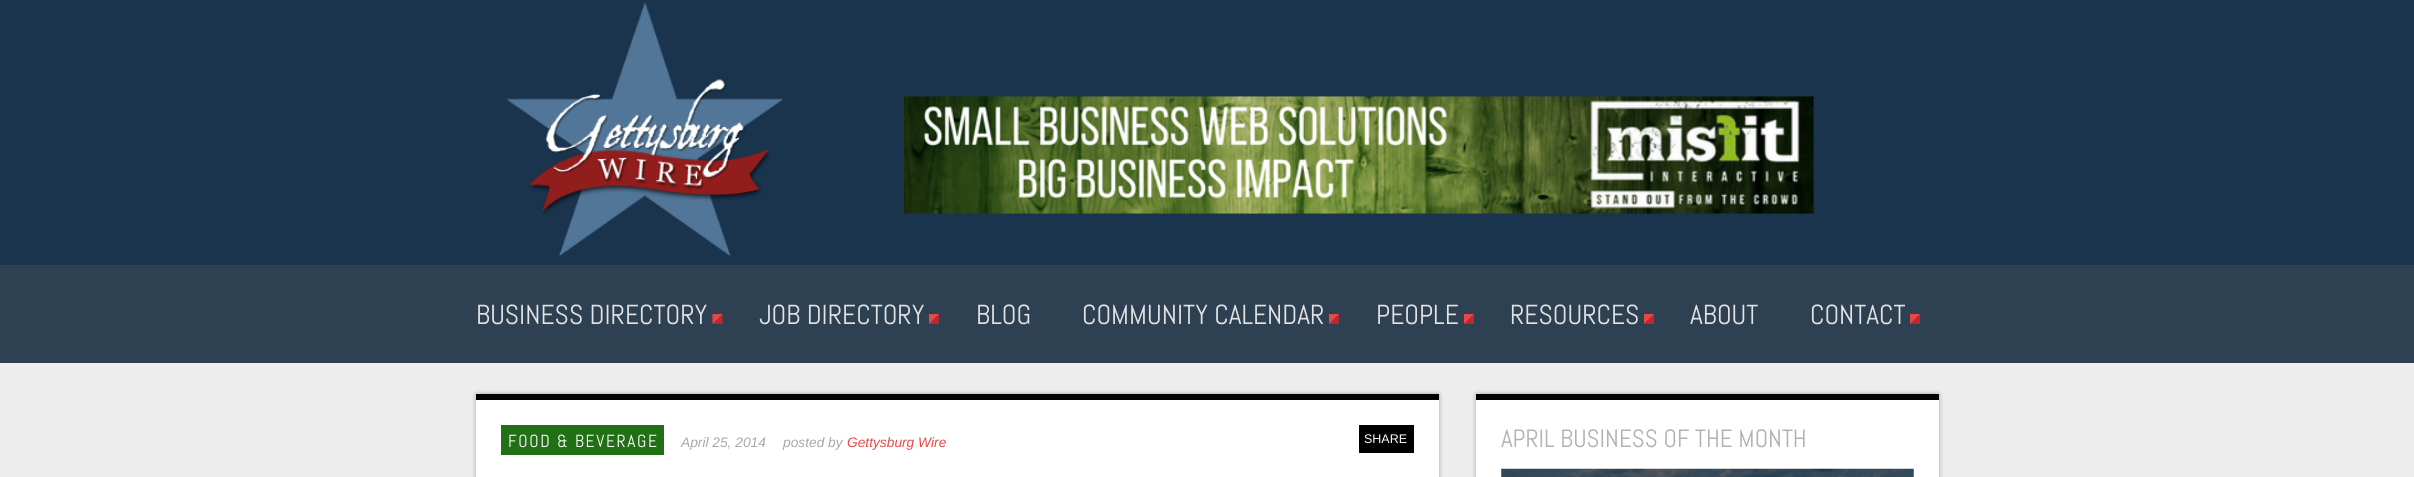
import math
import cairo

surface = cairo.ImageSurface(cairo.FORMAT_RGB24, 2414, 477)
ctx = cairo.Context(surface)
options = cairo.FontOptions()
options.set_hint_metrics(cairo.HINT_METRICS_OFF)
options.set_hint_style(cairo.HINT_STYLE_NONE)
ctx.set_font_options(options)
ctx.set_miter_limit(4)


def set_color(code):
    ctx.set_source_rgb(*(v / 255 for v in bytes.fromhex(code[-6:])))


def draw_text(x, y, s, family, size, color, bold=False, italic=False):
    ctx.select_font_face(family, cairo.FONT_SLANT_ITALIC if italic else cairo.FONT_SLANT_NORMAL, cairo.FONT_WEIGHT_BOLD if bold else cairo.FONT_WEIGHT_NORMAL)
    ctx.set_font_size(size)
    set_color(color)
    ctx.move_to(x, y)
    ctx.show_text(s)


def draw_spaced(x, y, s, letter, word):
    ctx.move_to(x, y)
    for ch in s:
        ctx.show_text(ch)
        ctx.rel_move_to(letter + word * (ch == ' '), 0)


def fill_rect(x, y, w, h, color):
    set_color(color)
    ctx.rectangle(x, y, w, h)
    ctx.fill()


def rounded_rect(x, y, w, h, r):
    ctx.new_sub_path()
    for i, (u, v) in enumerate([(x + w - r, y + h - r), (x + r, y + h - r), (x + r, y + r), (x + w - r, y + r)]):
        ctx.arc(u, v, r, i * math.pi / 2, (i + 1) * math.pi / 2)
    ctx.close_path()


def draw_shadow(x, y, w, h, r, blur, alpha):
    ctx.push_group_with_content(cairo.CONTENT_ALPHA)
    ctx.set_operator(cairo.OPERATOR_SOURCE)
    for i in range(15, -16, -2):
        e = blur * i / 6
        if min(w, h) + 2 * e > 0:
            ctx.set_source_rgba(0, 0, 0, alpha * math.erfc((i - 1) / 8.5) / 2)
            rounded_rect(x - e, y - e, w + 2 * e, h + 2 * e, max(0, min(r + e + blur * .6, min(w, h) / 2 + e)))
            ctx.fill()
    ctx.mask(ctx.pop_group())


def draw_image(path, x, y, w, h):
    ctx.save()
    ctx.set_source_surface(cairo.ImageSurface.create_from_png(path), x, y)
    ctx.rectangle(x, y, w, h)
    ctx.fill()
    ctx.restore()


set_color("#ededed")
ctx.paint()
fill_rect(0, 0, 2414, 265, "#1a344d")
draw_image("assets/img1.png", 506, 2, 277, 255)
draw_image("assets/img2.png", 903, 96, 911, 118)
fill_rect(0, 265, 2414, 98, "#2d4153")
draw_text(476, 324, "BUSINESS DIRECTORY", "Abel", 27.5, "#e3e3e3")
set_color("#c0262c")
ctx.new_path()
ctx.move_to(722.5, 324)
ctx.line_to(712.5, 324)
ctx.line_to(722.5, 314)
ctx.close_path()
ctx.fill()
set_color("#e64946")
ctx.new_path()
ctx.move_to(712.5, 324)
ctx.line_to(712.5, 314)
ctx.line_to(722.5, 314)
ctx.close_path()
ctx.fill()
draw_text(759, 324, "JOB DIRECTORY", "Abel", 27.5, "#e3e3e3")
set_color("#c0262c")
ctx.new_path()
ctx.move_to(939, 324)
ctx.line_to(929, 324)
ctx.line_to(939, 314)
ctx.close_path()
ctx.fill()
set_color("#e64946")
ctx.new_path()
ctx.move_to(929, 324)
ctx.line_to(929, 314)
ctx.line_to(939, 314)
ctx.close_path()
ctx.fill()
draw_text(976, 324, "BLOG", "Abel", 27.5, "#e3e3e3")
draw_text(1082, 324, "COMMUNITY CALENDAR", "Abel", 27.5, "#e3e3e3")
set_color("#c0262c")
ctx.new_path()
ctx.move_to(1339, 324)
ctx.line_to(1329, 324)
ctx.line_to(1339, 314)
ctx.close_path()
ctx.fill()
set_color("#e64946")
ctx.new_path()
ctx.move_to(1329, 324)
ctx.line_to(1329, 314)
ctx.line_to(1339, 314)
ctx.close_path()
ctx.fill()
draw_text(1376, 324, "PEOPLE", "Abel", 27.5, "#e3e3e3")
set_color("#c0262c")
ctx.new_path()
ctx.move_to(1474, 324)
ctx.line_to(1464, 324)
ctx.line_to(1474, 314)
ctx.close_path()
ctx.fill()
set_color("#e64946")
ctx.new_path()
ctx.move_to(1464, 324)
ctx.line_to(1464, 314)
ctx.line_to(1474, 314)
ctx.close_path()
ctx.fill()
draw_text(1510, 324, "RESOURCES", "Abel", 27.5, "#e3e3e3")
set_color("#c0262c")
ctx.new_path()
ctx.move_to(1654, 324)
ctx.line_to(1644, 324)
ctx.line_to(1654, 314)
ctx.close_path()
ctx.fill()
set_color("#e64946")
ctx.new_path()
ctx.move_to(1644, 324)
ctx.line_to(1644, 314)
ctx.line_to(1654, 314)
ctx.close_path()
ctx.fill()
draw_text(1690, 324, "ABOUT", "Abel", 27.5, "#e3e3e3")
draw_text(1810, 324, "CONTACT", "Abel", 27.5, "#e3e3e3")
set_color("#c0262c")
ctx.new_path()
ctx.move_to(1920, 324)
ctx.line_to(1910, 324)
ctx.line_to(1920, 314)
ctx.close_path()
ctx.fill()
set_color("#e64946")
ctx.new_path()
ctx.move_to(1910, 324)
ctx.line_to(1910, 314)
ctx.line_to(1920, 314)
ctx.close_path()
ctx.fill()
set_color("#000000")
draw_shadow(476, 394, 963, 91, 0, 2.5, 0.3)
fill_rect(476, 400, 963, 77, "#ffffff")
fill_rect(476, 394, 963, 6, "#000000")
fill_rect(501, 425, 163, 30, "#217015")
ctx.set_font_size(17.5)
set_color("#ffffff")
draw_spaced(508, 447, "FOOD & BEVERAGE", 1.6, 0)
draw_text(681, 447, "April 25, 2014", "Liberation Sans", 13.75, "#a8a8a8", italic=True)
draw_text(783, 447, "posted by", "Liberation Sans", 13.75, "#a8a8a8", italic=True)
draw_text(847, 447, "Gettysburg Wire", "Liberation Sans", 13.75, "#e64946", italic=True)
fill_rect(1359, 425, 55, 28, "#000000")
draw_text(1364, 443, "SHARE", "Liberation Sans", 12.5, "#ffffff")
set_color("#000000")
draw_shadow(1476, 394, 463, 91, 0, 2.5, 0.3)
fill_rect(1476, 400, 463, 77, "#ffffff")
fill_rect(1476, 394, 463, 6, "#000000")
draw_text(1501, 447, "APRIL BUSINESS OF THE MONTH", "Abel", 25, "#b2b2b2")
draw_image("assets/img3.png", 1501, 468, 413, 9)
surface.write_to_png("output.png")
